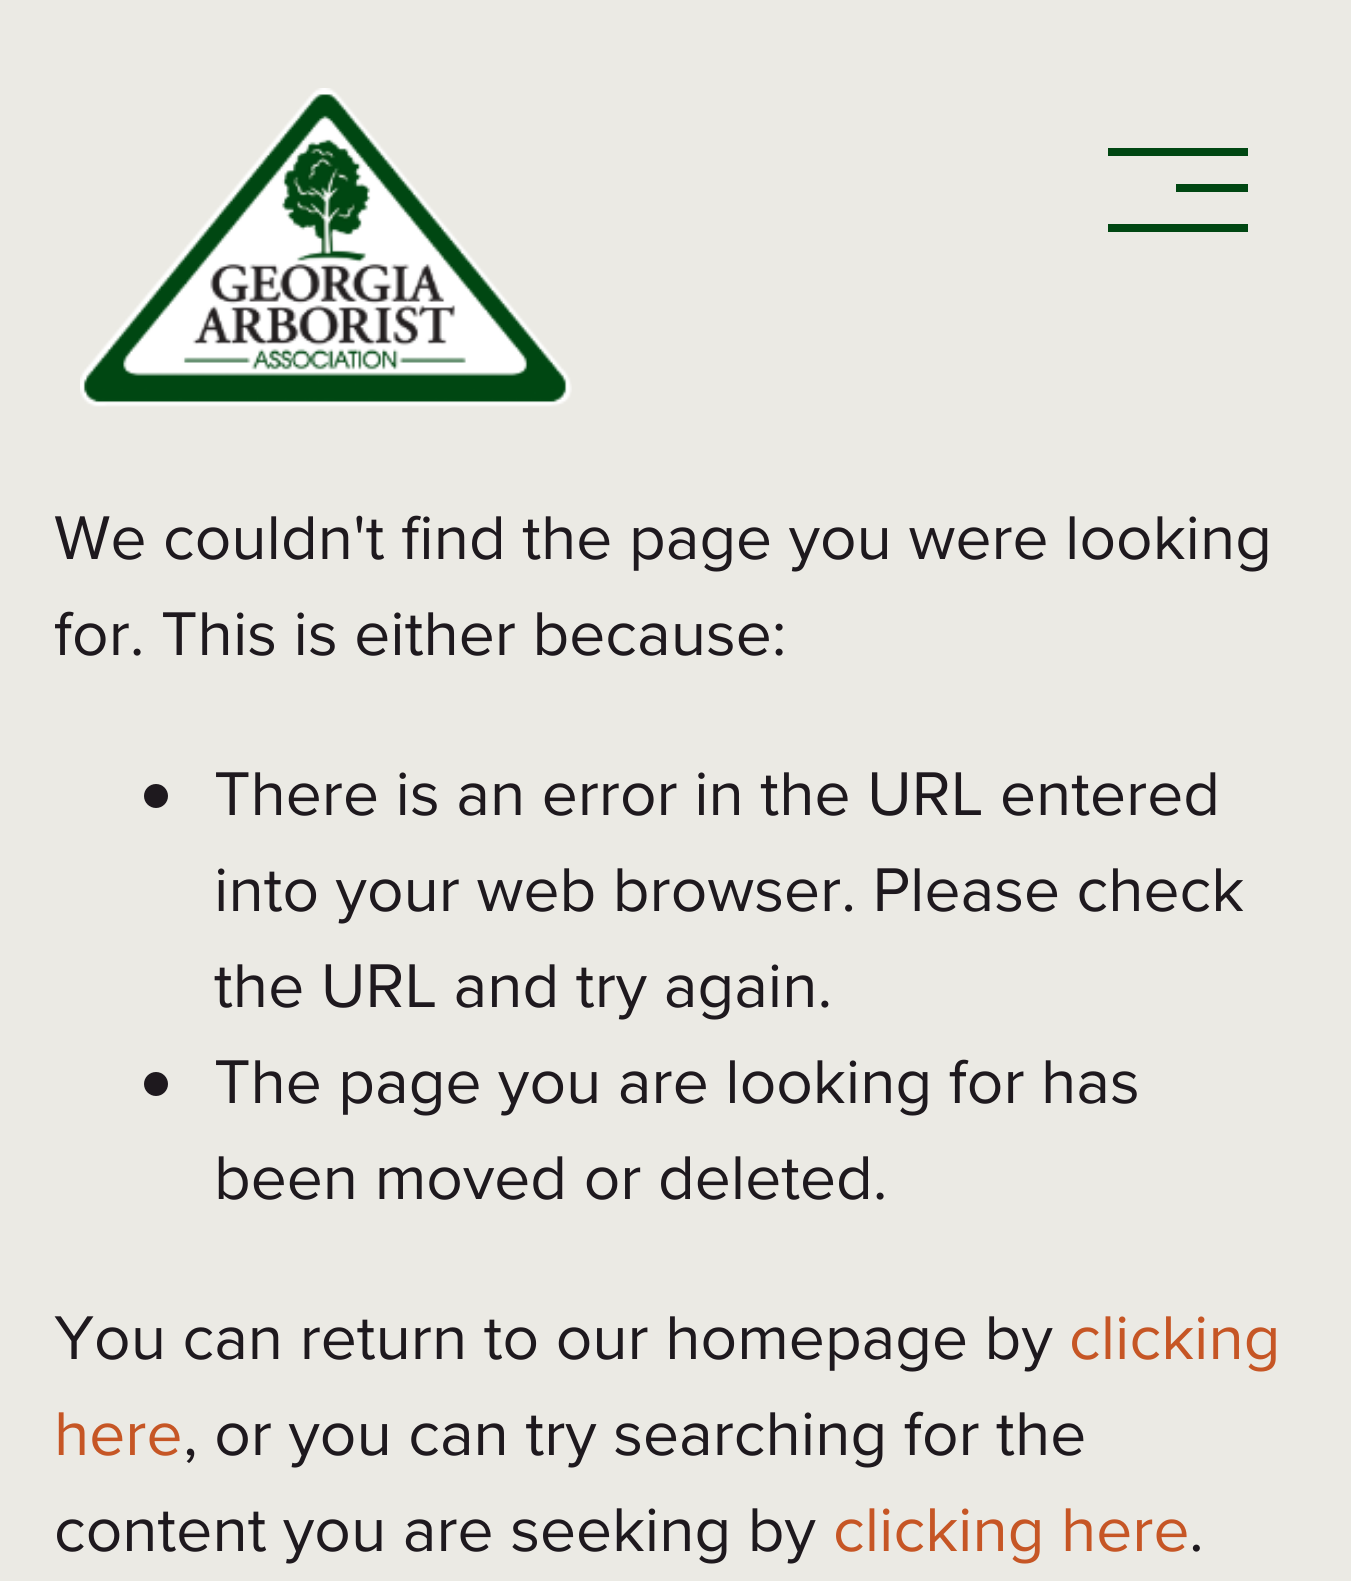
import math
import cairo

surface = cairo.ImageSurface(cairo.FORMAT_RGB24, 1351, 1581)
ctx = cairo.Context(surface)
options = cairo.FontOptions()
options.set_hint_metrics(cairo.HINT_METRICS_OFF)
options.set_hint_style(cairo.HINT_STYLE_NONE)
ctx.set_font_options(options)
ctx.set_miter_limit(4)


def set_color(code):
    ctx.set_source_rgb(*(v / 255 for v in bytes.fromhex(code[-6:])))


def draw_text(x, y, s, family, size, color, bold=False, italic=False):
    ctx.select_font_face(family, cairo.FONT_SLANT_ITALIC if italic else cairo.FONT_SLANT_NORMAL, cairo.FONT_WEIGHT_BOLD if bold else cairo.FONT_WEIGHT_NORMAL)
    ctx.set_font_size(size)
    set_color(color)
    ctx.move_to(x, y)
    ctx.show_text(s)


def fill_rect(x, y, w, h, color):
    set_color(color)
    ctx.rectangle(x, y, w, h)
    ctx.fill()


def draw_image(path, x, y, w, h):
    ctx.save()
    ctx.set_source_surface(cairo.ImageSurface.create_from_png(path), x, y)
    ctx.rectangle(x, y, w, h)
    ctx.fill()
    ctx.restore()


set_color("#ebeae4")
ctx.paint()
draw_image("assets/img1.png", 80, 88, 492, 319)
fill_rect(1108, 148, 140, 8, "#004712")
fill_rect(1176, 184, 72, 8, "#004712")
fill_rect(1108, 224, 140, 8, "#004712")
draw_text(54, 559, "We couldn't find the page you were looking", "Proxima Nova", 64, "#1e191e")
draw_text(54, 655, "for. This is either because:", "Proxima Nova", 64, "#1e191e")
ctx.new_path()
ctx.arc(156, 796, 12, 0, 2 * math.pi)
ctx.fill()
draw_text(214, 815, "There is an error in the URL entered", "Proxima Nova", 64, "#1e191e")
draw_text(214, 911, "into your web browser. Please check", "Proxima Nova", 64, "#1e191e")
draw_text(214, 1007, "the URL and try again.", "Proxima Nova", 64, "#1e191e")
ctx.new_path()
ctx.arc(156, 1084, 12, 0, 2 * math.pi)
ctx.fill()
draw_text(214, 1103, "The page you are looking for has", "Proxima Nova", 64, "#1e191e")
draw_text(214, 1199, "been moved or deleted.", "Proxima Nova", 64, "#1e191e")
draw_text(54, 1359, "You can return to our homepage by", "Proxima Nova", 64, "#1e191e")
draw_text(1069, 1359, "clicking", "Proxima Nova", 64, "#c65625")
draw_text(54, 1455, "here", "Proxima Nova", 64, "#c65625")
draw_text(183, 1455, ", or you can try searching for the", "Proxima Nova", 64, "#1e191e")
draw_text(54, 1551, "content you are seeking by", "Proxima Nova", 64, "#1e191e")
draw_text(833, 1551, "clicking here", "Proxima Nova", 64, "#c65625")
draw_text(1189, 1551, ".", "Proxima Nova", 64, "#1e191e")
surface.write_to_png("output.png")
